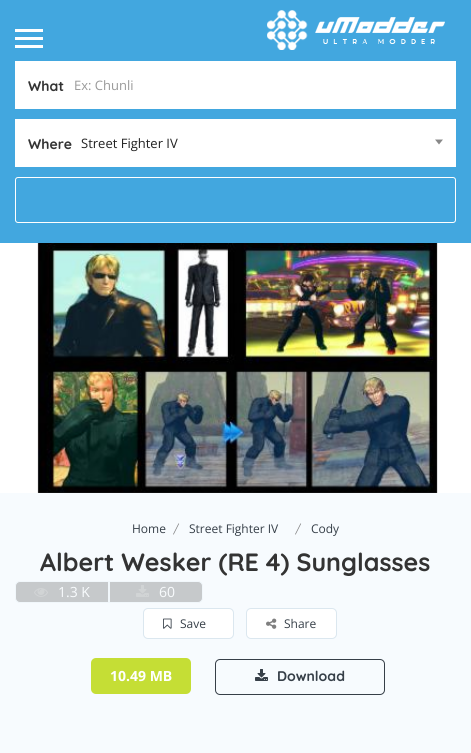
import math
import cairo

surface = cairo.ImageSurface(cairo.FORMAT_RGB24, 471, 753)
ctx = cairo.Context(surface)
options = cairo.FontOptions()
options.set_hint_metrics(cairo.HINT_METRICS_OFF)
options.set_hint_style(cairo.HINT_STYLE_NONE)
ctx.set_font_options(options)
ctx.set_miter_limit(4)


def set_color(code):
    ctx.set_source_rgb(*(v / 255 for v in bytes.fromhex(code[-6:])))


def draw_text(x, y, s, family, size, color, bold=False, italic=False):
    ctx.select_font_face(family, cairo.FONT_SLANT_ITALIC if italic else cairo.FONT_SLANT_NORMAL, cairo.FONT_WEIGHT_BOLD if bold else cairo.FONT_WEIGHT_NORMAL)
    ctx.set_font_size(size)
    set_color(color)
    ctx.move_to(x, y)
    ctx.show_text(s)


def fill_rect(x, y, w, h, color):
    set_color(color)
    ctx.rectangle(x, y, w, h)
    ctx.fill()


def rounded_rect(x, y, w, h, r):
    ctx.new_sub_path()
    for i, (u, v) in enumerate([(x + w - r, y + h - r), (x + r, y + h - r), (x + r, y + r), (x + w - r, y + r)]):
        ctx.arc(u, v, r, i * math.pi / 2, (i + 1) * math.pi / 2)
    ctx.close_path()


def draw_image(path, x, y, w, h):
    ctx.save()
    ctx.set_source_surface(cairo.ImageSurface.create_from_png(path), x, y)
    ctx.rectangle(x, y, w, h)
    ctx.fill()
    ctx.restore()


set_color("#f7fbfe")
ctx.paint()
fill_rect(0, 0, 471, 243, "#42a7df")
draw_image("assets/img1.png", 267, 10, 178, 40)
fill_rect(15, 29, 28, 3, "#ffffff")
fill_rect(15, 37, 28, 3, "#ffffff")
fill_rect(15, 45, 28, 3, "#ffffff")
fill_rect(15, 61, 441, 48, "#ffffff")
draw_text(28, 91, "What", "Quicksand", 14, "#333333", bold=True)
draw_text(74, 90, "Ex: Chunli", "Open Sans", 13, "#999999")
fill_rect(15, 119, 441, 48, "#ffffff")
draw_text(28, 149, "Where", "Quicksand", 14, "#333333", bold=True)
draw_text(81, 148, "Street Fighter IV", "Open Sans", 13, "#222222")
set_color("#888888")
ctx.new_path()
ctx.move_to(435, 139.5)
ctx.line_to(443, 139.5)
ctx.line_to(439, 144.5)
ctx.close_path()
ctx.fill()
rounded_rect(15.5, 177.5, 440, 45, 2.5)
set_color("#ffffff")
ctx.set_line_width(1)
ctx.stroke()
fill_rect(0, 243, 471, 250, "#ffffff")
draw_image("assets/img2.png", 37, 243, 401, 250)
draw_text(132, 533, "Home", "Open Sans", 12, "#363f48")
draw_text(173, 533, "/", "Quicksand", 12, "#7f7f7f")
draw_text(189, 533, "Street Fighter IV", "Open Sans", 12, "#363f48")
draw_text(295, 533, "/", "Quicksand", 12, "#7f7f7f")
draw_text(311, 533, "Cody", "Open Sans", 12, "#363f48")
draw_text(40, 571, "Albert Wesker (RE 4) Sunglasses", "Quicksand", 25, "#333333", bold=True)
set_color("#c6c9cb")
ctx.new_path()
ctx.move_to(20, 581.5)
ctx.line_to(108.5, 581.5)
ctx.line_to(108.5, 602.5)
ctx.line_to(20, 602.5)
ctx.curve_to(17.5, 602.5, 15.5, 600.5, 15.5, 598)
ctx.line_to(15.5, 586)
ctx.curve_to(15.5, 583.5, 17.5, 581.5, 20, 581.5)
ctx.close_path()
ctx.fill_preserve()
set_color("#f1f7fb")
ctx.stroke()
draw_image("assets/img3.png", 34, 588, 14, 9)
draw_text(58, 597, "1.3 K", "Open Sans", 14, "#f9fcfe")
set_color("#c6c9cb")
ctx.new_path()
ctx.move_to(109.5, 581.5)
ctx.line_to(198, 581.5)
ctx.curve_to(200.5, 581.5, 202.5, 583.5, 202.5, 586)
ctx.line_to(202.5, 598)
ctx.curve_to(202.5, 600.5, 200.5, 602.5, 198, 602.5)
ctx.line_to(109.5, 602.5)
ctx.close_path()
ctx.fill_preserve()
set_color("#f1f7fb")
ctx.stroke()
draw_image("assets/img4.png", 136, 585, 13, 12)
draw_text(159, 597, "60", "Open Sans", 14, "#f9fcfe")
set_color("#ffffff")
rounded_rect(143.5, 608.5, 90, 30, 4.5)
ctx.fill_preserve()
set_color("#dbe7ef")
ctx.stroke()
draw_image("assets/img5.png", 163, 618, 9, 11)
draw_text(180, 628, "Save", "Open Sans", 12, "#363f48")
set_color("#ffffff")
rounded_rect(246.5, 608.5, 90, 30, 4.5)
ctx.fill_preserve()
set_color("#dbe7ef")
ctx.stroke()
draw_image("assets/img6.png", 266, 618, 11, 11)
draw_text(284, 628, "Share", "Open Sans", 12, "#363f48")
set_color("#c5de35")
rounded_rect(91, 658, 100, 36, 5)
ctx.fill()
draw_text(110, 681, "10.49 MB", "Open Sans", 14, "#ffffff", bold=True)
rounded_rect(215.5, 659.5, 169, 35, 4.5)
set_color("#363f48")
ctx.stroke()
draw_image("assets/img7.png", 255, 669, 13, 12)
draw_text(277, 681, "Download", "Quicksand", 14, "#363f48", bold=True)
surface.write_to_png("output.png")
